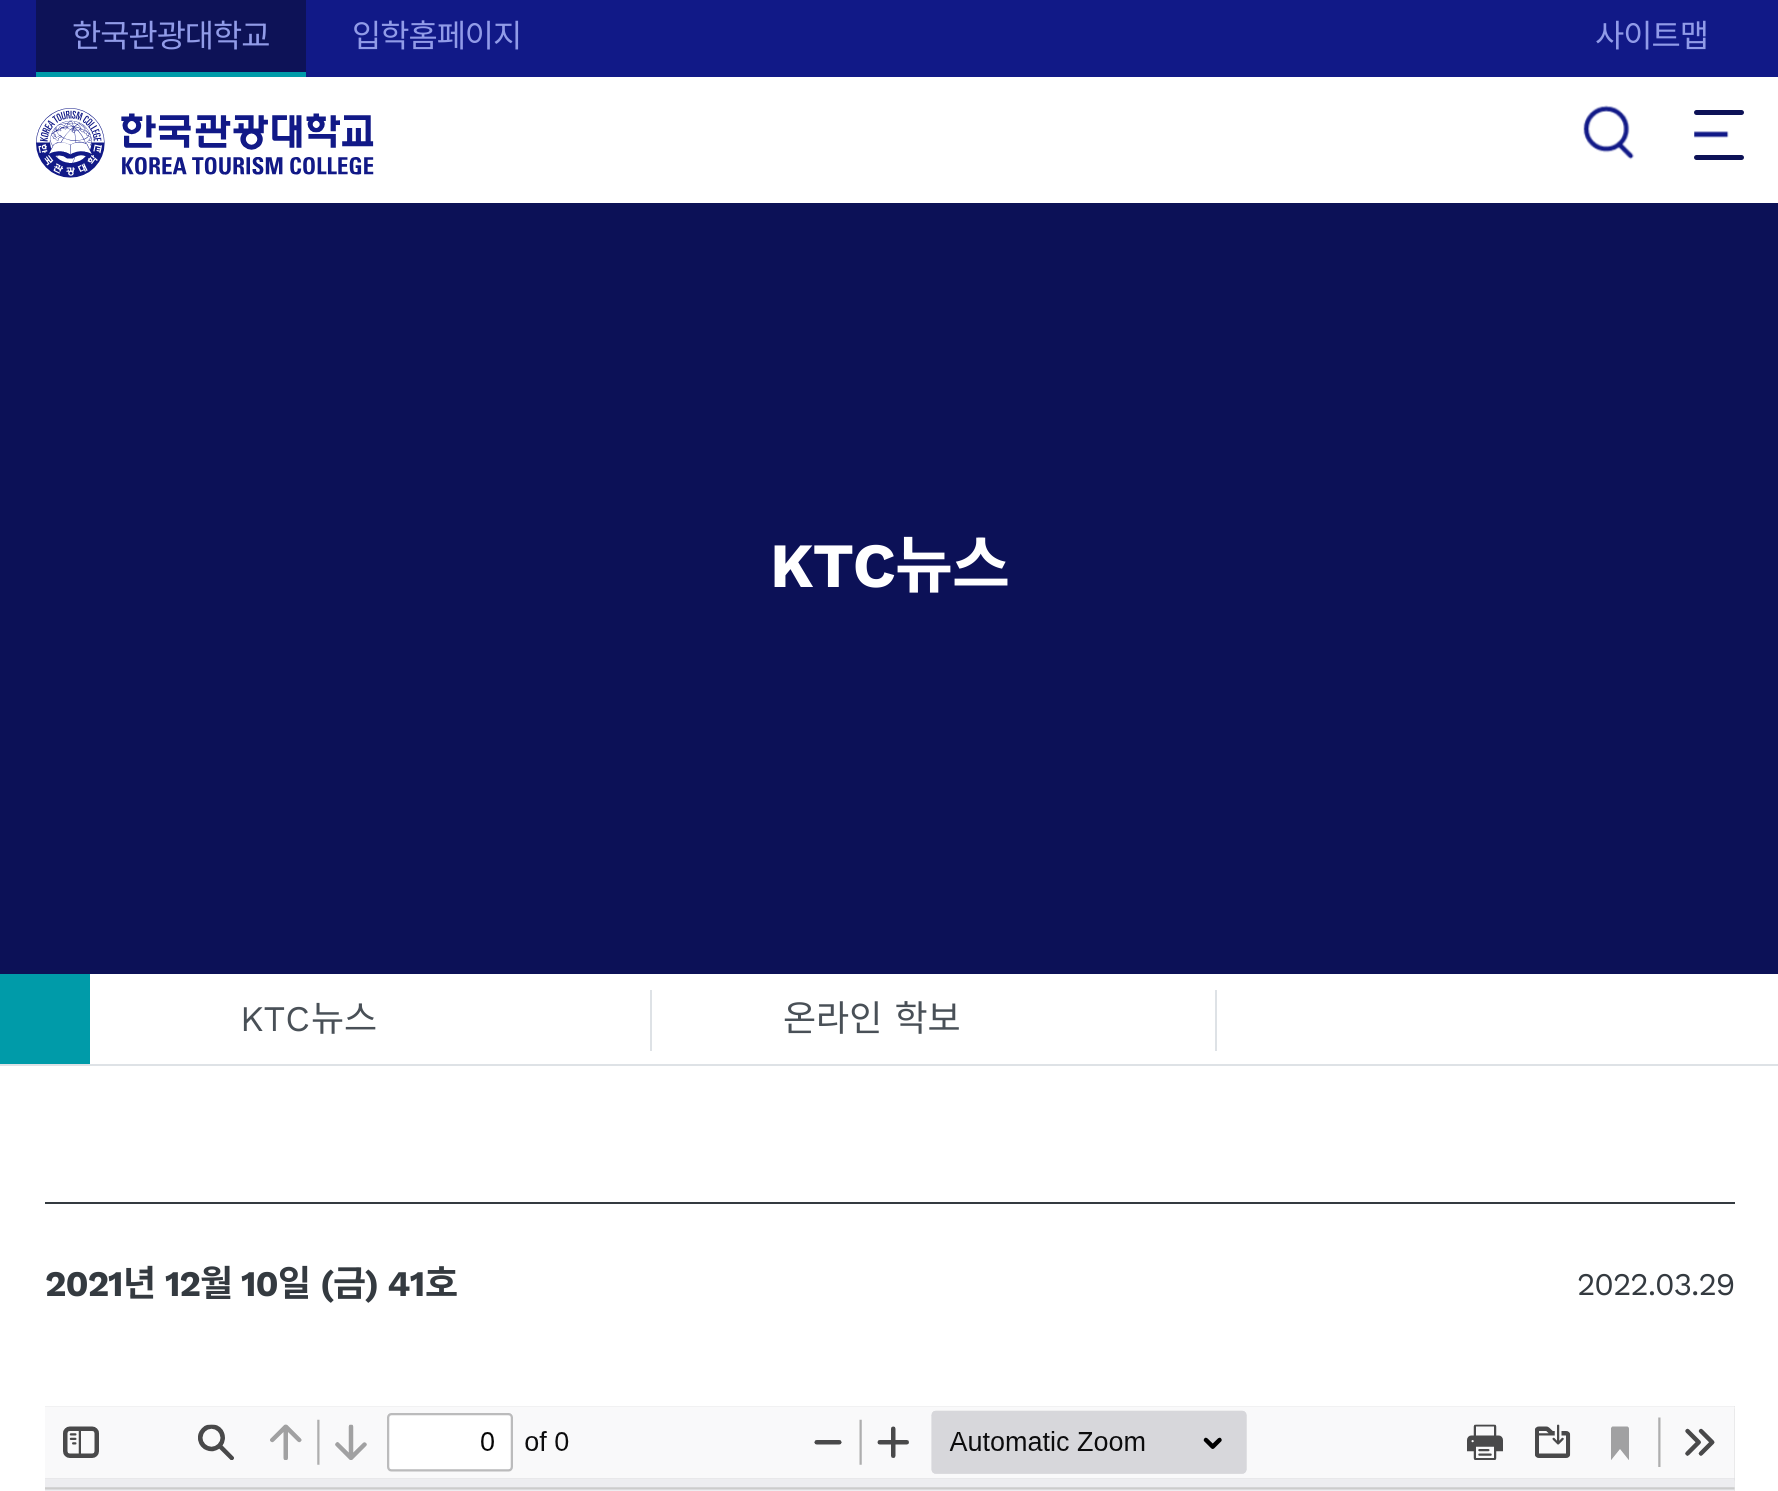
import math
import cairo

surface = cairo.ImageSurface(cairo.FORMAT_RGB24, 1778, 1491)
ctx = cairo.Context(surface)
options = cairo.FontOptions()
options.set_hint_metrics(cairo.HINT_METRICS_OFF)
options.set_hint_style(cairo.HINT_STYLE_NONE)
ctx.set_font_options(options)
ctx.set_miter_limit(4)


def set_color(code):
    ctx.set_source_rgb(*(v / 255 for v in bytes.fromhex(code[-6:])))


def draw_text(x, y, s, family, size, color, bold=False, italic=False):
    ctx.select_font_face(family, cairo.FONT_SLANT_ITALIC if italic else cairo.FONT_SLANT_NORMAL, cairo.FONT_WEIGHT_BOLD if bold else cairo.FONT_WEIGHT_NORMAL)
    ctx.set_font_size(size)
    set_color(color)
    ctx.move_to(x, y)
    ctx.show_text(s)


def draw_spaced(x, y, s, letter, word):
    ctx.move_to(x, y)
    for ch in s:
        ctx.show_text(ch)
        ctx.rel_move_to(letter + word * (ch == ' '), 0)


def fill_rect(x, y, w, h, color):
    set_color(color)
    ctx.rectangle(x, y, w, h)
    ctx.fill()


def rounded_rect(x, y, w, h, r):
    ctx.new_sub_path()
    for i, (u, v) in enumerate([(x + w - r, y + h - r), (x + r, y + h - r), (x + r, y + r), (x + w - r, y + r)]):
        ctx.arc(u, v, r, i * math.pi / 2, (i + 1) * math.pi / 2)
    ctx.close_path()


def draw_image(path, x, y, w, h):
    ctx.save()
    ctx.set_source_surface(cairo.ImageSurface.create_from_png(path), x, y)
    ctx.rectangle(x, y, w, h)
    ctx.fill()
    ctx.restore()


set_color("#ffffff")
ctx.paint()
fill_rect(0, 0, 1778, 77, "#111987")
fill_rect(36, 0, 270, 72, "#0d1257")
fill_rect(36, 72, 270, 5, "#009ba9")
ctx.select_font_face("Noto Sans KR")
ctx.set_font_size(31.75)
set_color("#919be8")
draw_spaced(72, 47, "한국관광대학교", -1, 0)
draw_spaced(352, 47, "입학홈페이지", -1, 0)
draw_spaced(1595, 47, "사이트맵", -1, 0)
draw_image("assets/img1.png", 36, 108, 338, 70)
draw_image("assets/img2.png", 1583, 105, 52, 55)
draw_image("assets/img3.png", 1694, 131, 35, 7)
set_color("#0d1257")
rounded_rect(1694, 110, 50, 5, 2.5)
ctx.fill()
rounded_rect(1694, 155, 50, 5, 2.5)
ctx.fill()
fill_rect(0, 205, 1778, 769, "#0c1157")
fill_rect(0, 203, 1778, 2, "#0d1257")
fill_rect(0, 1064, 1778, 2, "#dee2e6")
ctx.select_font_face("Work Sans", cairo.FONT_SLANT_NORMAL, cairo.FONT_WEIGHT_BOLD)
ctx.set_font_size(63)
set_color("#ffffff")
draw_spaced(770, 587, "KTC", -1, 0)
ctx.select_font_face("Noto Sans KR", cairo.FONT_SLANT_NORMAL, cairo.FONT_WEIGHT_BOLD)
draw_spaced(895, 587, "뉴스", -1, 0)
fill_rect(0, 974, 90, 90, "#009ba9")
draw_text(240, 1031, "KTC", "Work Sans", 36, "#495057")
draw_text(311, 1031, "뉴스", "Noto Sans KR", 36, "#495057")
fill_rect(650, 990, 2, 61, "#dee2e6")
set_color("#495057")
draw_spaced(783, 1031, "온라인 학보", 0, 4)
fill_rect(1215, 990, 2, 61, "#dee2e6")
fill_rect(45, 1202, 1690, 2, "#343a40")
ctx.select_font_face("Work Sans", cairo.FONT_SLANT_NORMAL, cairo.FONT_WEIGHT_BOLD)
draw_spaced(45, 1296, "2021", -1, 0)
ctx.select_font_face("Noto Sans KR", cairo.FONT_SLANT_NORMAL, cairo.FONT_WEIGHT_BOLD)
draw_spaced(123, 1296, "년", -1, 0)
ctx.select_font_face("Work Sans", cairo.FONT_SLANT_NORMAL, cairo.FONT_WEIGHT_BOLD)
draw_spaced(165, 1296, "12", -1, 0)
ctx.select_font_face("Noto Sans KR", cairo.FONT_SLANT_NORMAL, cairo.FONT_WEIGHT_BOLD)
draw_spaced(200, 1296, "월", -1, 0)
ctx.select_font_face("Work Sans", cairo.FONT_SLANT_NORMAL, cairo.FONT_WEIGHT_BOLD)
draw_spaced(241, 1296, "10", -1, 0)
ctx.select_font_face("Noto Sans KR", cairo.FONT_SLANT_NORMAL, cairo.FONT_WEIGHT_BOLD)
draw_spaced(278, 1296, "일", -1, 0)
ctx.select_font_face("Work Sans", cairo.FONT_SLANT_NORMAL, cairo.FONT_WEIGHT_BOLD)
draw_spaced(320, 1296, "(", -1, 0)
ctx.select_font_face("Noto Sans KR", cairo.FONT_SLANT_NORMAL, cairo.FONT_WEIGHT_BOLD)
draw_spaced(333, 1296, "금", -1, 0)
ctx.select_font_face("Work Sans", cairo.FONT_SLANT_NORMAL, cairo.FONT_WEIGHT_BOLD)
draw_spaced(365, 1296, ") 41", -1, 0)
ctx.select_font_face("Noto Sans KR", cairo.FONT_SLANT_NORMAL, cairo.FONT_WEIGHT_BOLD)
draw_spaced(425, 1296, "호", -1, 0)
ctx.select_font_face("Work Sans")
ctx.set_font_size(31.5)
draw_spaced(1577, 1295, "2022.03.29", -1, 0)
fill_rect(45, 1406, 1690, 85, "#dddddd")
draw_image("assets/img4.png", 45, 1406, 1690, 85)
surface.write_to_png("output.png")
